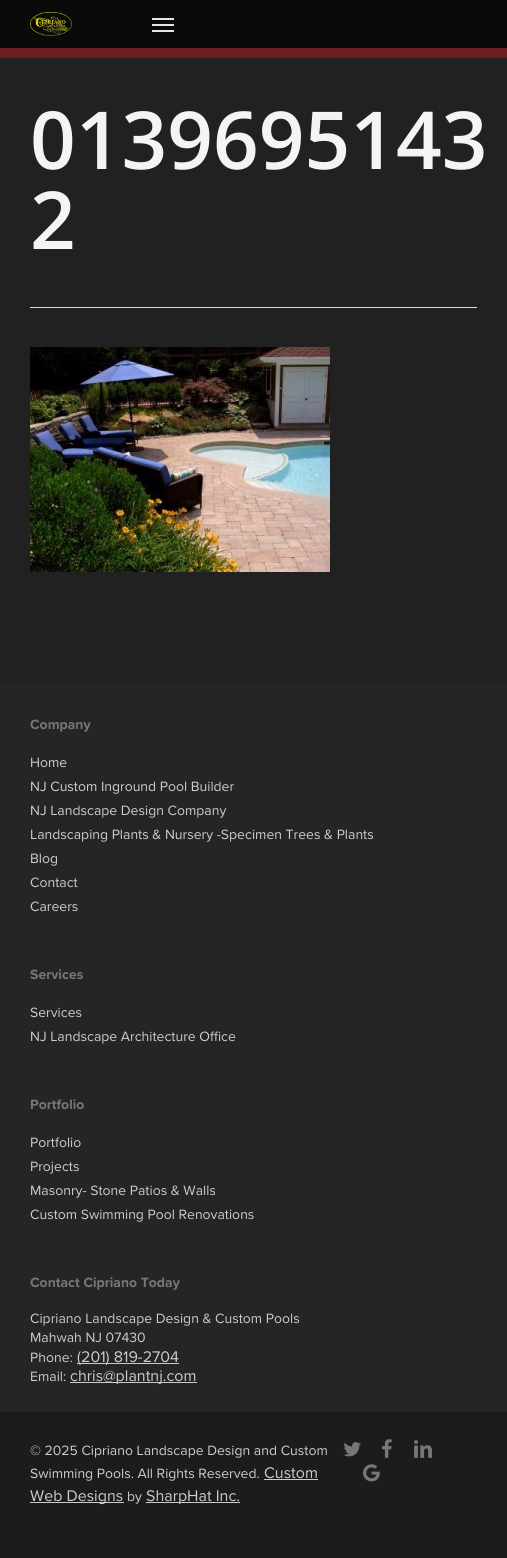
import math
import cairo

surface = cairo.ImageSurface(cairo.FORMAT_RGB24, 507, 1558)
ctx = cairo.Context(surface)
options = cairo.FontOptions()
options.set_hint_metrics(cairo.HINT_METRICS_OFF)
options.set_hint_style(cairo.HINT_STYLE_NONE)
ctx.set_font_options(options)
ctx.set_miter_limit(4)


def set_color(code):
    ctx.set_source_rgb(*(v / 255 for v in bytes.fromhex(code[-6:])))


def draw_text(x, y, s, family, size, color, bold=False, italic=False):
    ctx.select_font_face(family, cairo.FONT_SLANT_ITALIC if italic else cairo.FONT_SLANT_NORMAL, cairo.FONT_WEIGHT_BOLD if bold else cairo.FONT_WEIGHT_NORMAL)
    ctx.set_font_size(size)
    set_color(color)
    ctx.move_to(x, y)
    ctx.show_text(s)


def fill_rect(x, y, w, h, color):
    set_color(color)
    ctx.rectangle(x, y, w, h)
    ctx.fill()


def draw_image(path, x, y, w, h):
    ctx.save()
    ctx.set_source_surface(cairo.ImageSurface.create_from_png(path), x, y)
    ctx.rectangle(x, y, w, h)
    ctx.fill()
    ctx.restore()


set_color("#252525")
ctx.paint()
fill_rect(0, 0, 507, 48, "#0a0a0a")
draw_image("assets/img1.png", 30, 12, 42, 24)
fill_rect(152, 18, 22, 2, "#e5e5e5")
fill_rect(152, 30, 22, 2, "#e5e5e5")
fill_rect(152, 24, 22, 2, "#e5e5e5")
fill_rect(0, 58, 507, 626, "#212121")
fill_rect(0, 48, 507, 10, "#6d1f1f")
fill_rect(30, 307, 447, 1, "#dddddd")
draw_text(30, 169, "0139695143", "Open Sans SemiBold", 80, "#f4f4f4")
draw_text(30, 249, "2", "Open Sans SemiBold", 80, "#f4f4f4")
draw_image("assets/img2.png", 30, 347, 300, 225)
draw_text(30, 729, "Company", "Proxima Nova", 14, "#777777", bold=True)
draw_text(30, 767, "Home", "Proxima Nova", 14, "#cccccc")
draw_text(30, 791, "NJ Custom Inground Pool Builder", "Proxima Nova", 14, "#cccccc")
draw_text(30, 815, "NJ Landscape Design Company", "Proxima Nova", 14, "#cccccc")
draw_text(30, 839, "Landscaping Plants & Nursery -Specimen Trees & Plants", "Proxima Nova", 14, "#cccccc")
draw_text(30, 863, "Blog", "Proxima Nova", 14, "#cccccc")
draw_text(30, 887, "Contact", "Proxima Nova", 14, "#cccccc")
draw_text(30, 911, "Careers", "Proxima Nova", 14, "#cccccc")
draw_text(30, 979, "Services", "Proxima Nova", 14, "#777777", bold=True)
draw_text(30, 1017, "Services", "Proxima Nova", 14, "#cccccc")
draw_text(30, 1041, "NJ Landscape Architecture Office", "Proxima Nova", 14, "#cccccc")
draw_text(30, 1109, "Portfolio", "Proxima Nova", 14, "#777777", bold=True)
draw_text(30, 1147, "Portfolio", "Proxima Nova", 14, "#cccccc")
draw_text(30, 1171, "Projects", "Proxima Nova", 14, "#cccccc")
draw_text(30, 1195, "Masonry- Stone Patios & Walls", "Proxima Nova", 14, "#cccccc")
draw_text(30, 1219, "Custom Swimming Pool Renovations", "Proxima Nova", 14, "#cccccc")
draw_text(30, 1287, "Contact Cipriano Today", "Proxima Nova", 14, "#777777", bold=True)
draw_text(30, 1323, "Cipriano Landscape Design & Custom Pools", "Proxima Nova", 14, "#cccccc")
draw_text(30, 1342, "Mahwah NJ 07430", "Proxima Nova", 14, "#cccccc")
draw_text(30, 1362, "Phone:", "Proxima Nova", 14, "#cccccc")
fill_rect(77, 1363, 102, 1, "#cccccc")
draw_text(77, 1362, "(201) 819-2704", "Proxima Nova", 16, "#cccccc")
draw_text(30, 1381, "Email:", "Proxima Nova", 14, "#cccccc")
fill_rect(70, 1382, 127, 1, "#cccccc")
draw_text(70, 1381, "chris@plantnj.com", "Proxima Nova", 16, "#cccccc")
fill_rect(0, 1412, 507, 146, "#1c1c1c")
draw_text(30, 1455, "© 2025 Cipriano Landscape Design and Custom", "Proxima Nova", 14, "#cccccc")
draw_text(30, 1478, "Swimming Pools. All Rights Reserved.", "Proxima Nova", 14, "#cccccc")
draw_text(264, 1478, "Custom", "Proxima Nova", 16, "#cccccc")
fill_rect(264, 1479, 54, 1, "#cccccc")
fill_rect(30, 1502, 94, 1, "#cccccc")
draw_text(30, 1501, "Web Designs", "Proxima Nova", 16, "#cccccc")
draw_text(127, 1501, "by", "Proxima Nova", 14, "#cccccc")
fill_rect(146, 1502, 94, 1, "#cccccc")
draw_text(146, 1501, "SharpHat Inc.", "Proxima Nova", 16, "#cccccc")
draw_image("assets/img3.png", 343, 1442, 18, 15)
draw_image("assets/img4.png", 382, 1439, 10, 19)
draw_image("assets/img5.png", 414, 1440, 18, 18)
draw_image("assets/img6.png", 363, 1464, 17, 18)
surface.write_to_png("output.png")
